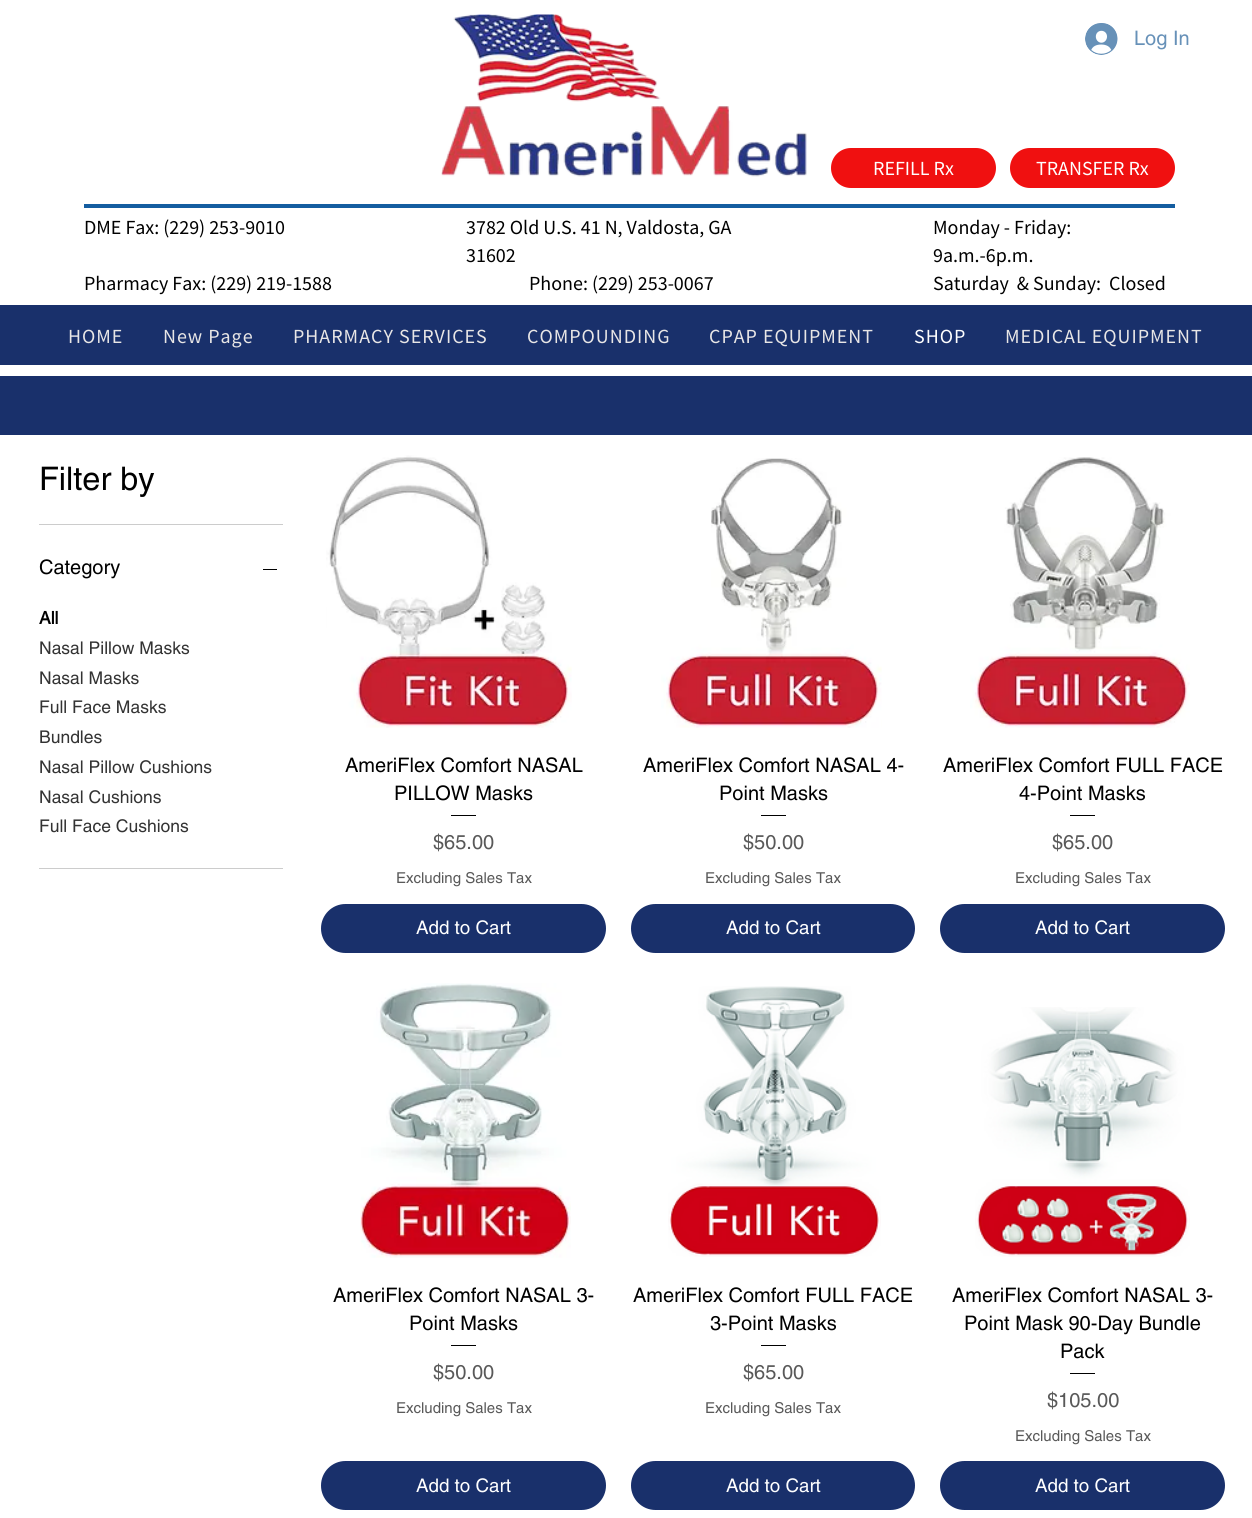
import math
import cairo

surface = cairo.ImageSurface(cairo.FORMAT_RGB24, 1252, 1518)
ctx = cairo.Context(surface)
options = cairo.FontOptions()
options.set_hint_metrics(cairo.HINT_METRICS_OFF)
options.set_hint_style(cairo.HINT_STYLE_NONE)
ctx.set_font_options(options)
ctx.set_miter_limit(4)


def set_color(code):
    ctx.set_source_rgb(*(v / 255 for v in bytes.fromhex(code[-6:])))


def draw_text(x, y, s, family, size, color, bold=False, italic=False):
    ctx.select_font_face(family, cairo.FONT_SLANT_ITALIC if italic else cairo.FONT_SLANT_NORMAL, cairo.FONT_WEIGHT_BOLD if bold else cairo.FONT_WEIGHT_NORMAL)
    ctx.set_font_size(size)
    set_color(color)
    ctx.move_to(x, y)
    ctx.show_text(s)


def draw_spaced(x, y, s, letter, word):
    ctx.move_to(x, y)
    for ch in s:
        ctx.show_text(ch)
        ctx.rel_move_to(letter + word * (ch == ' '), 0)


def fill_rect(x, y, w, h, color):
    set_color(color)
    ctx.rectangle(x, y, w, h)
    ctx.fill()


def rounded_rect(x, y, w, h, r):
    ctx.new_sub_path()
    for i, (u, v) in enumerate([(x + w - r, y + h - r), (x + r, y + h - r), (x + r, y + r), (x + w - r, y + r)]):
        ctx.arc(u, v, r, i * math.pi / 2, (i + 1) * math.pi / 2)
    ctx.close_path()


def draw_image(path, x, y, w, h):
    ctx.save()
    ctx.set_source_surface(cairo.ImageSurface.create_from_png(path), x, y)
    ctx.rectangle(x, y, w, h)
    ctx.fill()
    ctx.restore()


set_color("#ffffff")
ctx.paint()
draw_image("assets/img1.png", 441, 14, 366, 163)
draw_image("assets/img2.png", 1085, 23, 33, 32)
draw_text(1134, 45, "Log In", "helvetica", 20, "#6791b8")
set_color("#f01010")
rounded_rect(831, 148, 165, 40, 20)
ctx.fill()
draw_text(873, 175, "REFILL Rx", "Source Sans Pro", 20, "#ffffff")
set_color("#f01010")
rounded_rect(1010, 148, 165, 40, 20)
ctx.fill()
draw_text(1036, 175, "TRANSFER Rx", "Source Sans Pro", 20, "#ffffff")
fill_rect(84, 204, 1091, 4, "#145da0")
draw_text(84, 234, "DME Fax: (229) 253-9010", "Source Sans Pro", 20, "#000000")
draw_text(466, 234, "3782 Old U.S. 41 N, Valdosta, GA", "Source Sans Pro", 20, "#000000")
draw_text(466, 262, "31602", "Source Sans Pro", 20, "#000000")
draw_text(933, 234, "Monday - Friday:", "Source Sans Pro", 20, "#000000")
draw_text(933, 262, "9a.m.-6p.m.", "Source Sans Pro", 20, "#000000")
draw_text(84, 290, "Pharmacy Fax: (229) 219-1588", "Source Sans Pro", 20, "#000000")
draw_text(529, 290, "Phone: (229) 253-0067", "Source Sans Pro", 20, "#000000")
draw_text(933, 290, "Saturday  & Sunday:  Closed", "Source Sans Pro", 20, "#000000")
fill_rect(0, 305, 1252, 60, "#19306b")
set_color("#e8e6e6")
draw_spaced(68, 343, "HOME", 1, 0)
draw_spaced(163, 343, "New Page", 1, 0)
draw_spaced(293, 343, "PHARMACY SERVICES", 1, 0)
draw_spaced(527, 343, "COMPOUNDING", 1, 0)
draw_spaced(709, 343, "CPAP EQUIPMENT", 1, 0)
set_color("#ffffff")
draw_spaced(914, 343, "SHOP", 1, 0)
set_color("#e8e6e6")
draw_spaced(1005, 343, "MEDICAL EQUIPMENT", 1, 0)
fill_rect(0, 376, 1252, 59, "#19306b")
fill_rect(39, 524, 244, 1, "#cccccc")
draw_text(39, 490, "Filter by", "helvetica", 32.5, "#000000")
fill_rect(39, 868, 244, 1, "#cccccc")
draw_text(39, 574, "Category", "helvetica", 20, "#000000")
fill_rect(263, 569, 14, 1, "#000000")
draw_text(39, 624, "All", "helvetica", 17.5, "#000000", bold=True)
draw_text(39, 654, "Nasal Pillow Masks", "helvetica", 17.5, "#333333")
draw_text(39, 684, "Nasal Masks", "helvetica", 17.5, "#333333")
draw_text(39, 713, "Full Face Masks", "helvetica", 17.5, "#333333")
draw_text(39, 743, "Bundles", "helvetica", 17.5, "#333333")
draw_text(39, 773, "Nasal Pillow Cushions", "helvetica", 17.5, "#333333")
draw_text(39, 803, "Nasal Cushions", "helvetica", 17.5, "#333333")
draw_text(39, 832, "Full Face Cushions", "helvetica", 17.5, "#333333")
draw_image("assets/img3.png", 326, 455, 246, 273)
draw_text(345, 772, "AmeriFlex Comfort NASAL", "helvetica", 20, "#000000")
draw_text(394, 800, "PILLOW Masks", "helvetica", 20, "#000000")
fill_rect(451, 815, 25, 1, "#000000")
draw_text(433, 849, "$65.00", "helvetica", 20, "#595959")
draw_text(396, 883, "Excluding Sales Tax", "helvetica", 15, "#595959")
set_color("#19306b")
rounded_rect(321, 904, 285, 49, 24.5)
ctx.fill()
draw_text(416, 934, "Add to Cart", "helvetica", 18.75, "#ffffff")
draw_image("assets/img4.png", 661, 458, 221, 270)
draw_text(643, 772, "AmeriFlex Comfort NASAL 4-", "helvetica", 20, "#000000")
draw_text(719, 800, "Point Masks", "helvetica", 20, "#000000")
fill_rect(761, 815, 25, 1, "#000000")
draw_text(743, 849, "$50.00", "helvetica", 20, "#595959")
draw_text(705, 883, "Excluding Sales Tax", "helvetica", 15, "#595959")
set_color("#19306b")
rounded_rect(631, 904, 284, 49, 24.5)
ctx.fill()
draw_text(726, 934, "Add to Cart", "helvetica", 18.75, "#ffffff")
draw_image("assets/img5.png", 970, 457, 220, 271)
draw_text(943, 772, "AmeriFlex Comfort FULL FACE", "helvetica", 20, "#000000")
draw_text(1019, 800, "4-Point Masks", "helvetica", 20, "#000000")
fill_rect(1070, 815, 25, 1, "#000000")
draw_text(1052, 849, "$65.00", "helvetica", 20, "#595959")
draw_text(1015, 883, "Excluding Sales Tax", "helvetica", 15, "#595959")
set_color("#19306b")
rounded_rect(940, 904, 285, 49, 24.5)
ctx.fill()
draw_text(1035, 934, "Add to Cart", "helvetica", 18.75, "#ffffff")
draw_image("assets/img6.png", 360, 983, 211, 275)
draw_text(333, 1302, "AmeriFlex Comfort NASAL 3-", "helvetica", 20, "#000000")
draw_text(409, 1330, "Point Masks", "helvetica", 20, "#000000")
fill_rect(451, 1345, 25, 1, "#000000")
draw_text(433, 1379, "$50.00", "helvetica", 20, "#595959")
draw_text(396, 1413, "Excluding Sales Tax", "helvetica", 15, "#595959")
set_color("#19306b")
rounded_rect(321, 1461, 285, 49, 24.5)
ctx.fill()
draw_text(416, 1492, "Add to Cart", "helvetica", 18.75, "#ffffff")
draw_image("assets/img7.png", 668, 986, 213, 271)
draw_text(633, 1302, "AmeriFlex Comfort FULL FACE", "helvetica", 20, "#000000")
draw_text(710, 1330, "3-Point Masks", "helvetica", 20, "#000000")
fill_rect(761, 1345, 25, 1, "#000000")
draw_text(743, 1379, "$65.00", "helvetica", 20, "#595959")
draw_text(705, 1413, "Excluding Sales Tax", "helvetica", 15, "#595959")
set_color("#19306b")
rounded_rect(631, 1461, 284, 49, 24.5)
ctx.fill()
draw_text(726, 1492, "Add to Cart", "helvetica", 18.75, "#ffffff")
draw_image("assets/img8.png", 975, 1007, 215, 250)
draw_text(952, 1302, "AmeriFlex Comfort NASAL 3-", "helvetica", 20, "#000000")
draw_text(964, 1330, "Point Mask 90-Day Bundle", "helvetica", 20, "#000000")
draw_text(1060, 1358, "Pack", "helvetica", 20, "#000000")
fill_rect(1070, 1373, 25, 1, "#000000")
draw_text(1047, 1407, "$105.00", "helvetica", 20, "#595959")
draw_text(1015, 1441, "Excluding Sales Tax", "helvetica", 15, "#595959")
set_color("#19306b")
rounded_rect(940, 1461, 285, 49, 24.5)
ctx.fill()
draw_text(1035, 1492, "Add to Cart", "helvetica", 18.75, "#ffffff")
surface.write_to_png("output.png")
